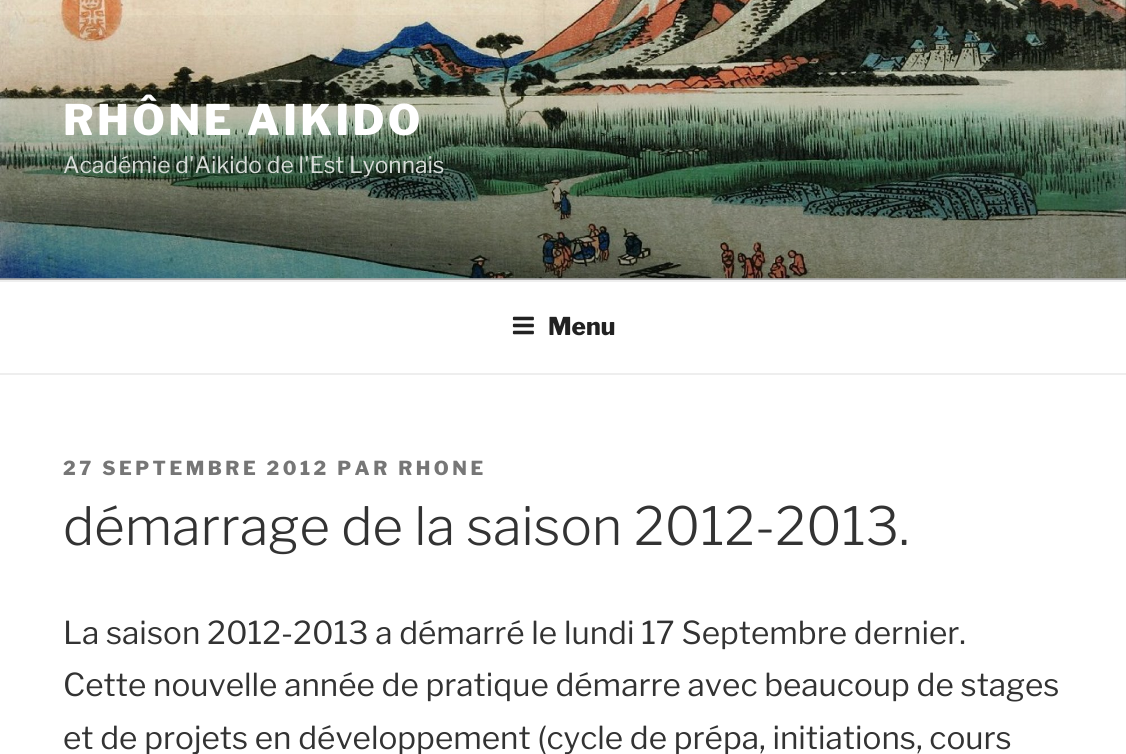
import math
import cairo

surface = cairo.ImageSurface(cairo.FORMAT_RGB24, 1126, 754)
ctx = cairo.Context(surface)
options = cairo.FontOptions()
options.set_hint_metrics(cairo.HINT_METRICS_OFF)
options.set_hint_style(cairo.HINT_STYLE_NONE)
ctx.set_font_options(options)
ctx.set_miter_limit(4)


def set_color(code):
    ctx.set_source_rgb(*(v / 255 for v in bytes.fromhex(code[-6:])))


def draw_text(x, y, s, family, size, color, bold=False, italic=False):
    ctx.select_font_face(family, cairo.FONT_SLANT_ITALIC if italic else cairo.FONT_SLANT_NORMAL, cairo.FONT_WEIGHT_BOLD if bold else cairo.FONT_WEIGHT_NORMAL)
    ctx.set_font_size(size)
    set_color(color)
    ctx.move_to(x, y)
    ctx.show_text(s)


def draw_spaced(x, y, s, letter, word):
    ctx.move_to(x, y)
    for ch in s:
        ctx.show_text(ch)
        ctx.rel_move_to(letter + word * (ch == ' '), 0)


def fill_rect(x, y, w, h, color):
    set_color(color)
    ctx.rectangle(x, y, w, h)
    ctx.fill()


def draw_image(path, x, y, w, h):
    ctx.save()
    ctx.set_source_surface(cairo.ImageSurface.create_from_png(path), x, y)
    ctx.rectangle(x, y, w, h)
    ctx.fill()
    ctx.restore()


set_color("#ffffff")
ctx.paint()
fill_rect(0, 278, 1126, 2, "#fafafa")
draw_image("assets/img1.png", 0, 0, 1126, 279)
gradient = cairo.LinearGradient(564, 0, 564, 280)
gradient.add_color_stop_rgba(0, 0, 0, 0, 0)
gradient.add_color_stop_rgba(0.75, 0, 0, 0, 0.3)
gradient.add_color_stop_rgba(1, 0, 0, 0, 0.3)
ctx.set_source(gradient)
ctx.rectangle(0, 15, 1126, 265)
ctx.fill()
ctx.select_font_face("Libre Franklin Thin")
ctx.set_font_size(42)
set_color("#ffffff")
draw_spaced(63, 135, "RHÔNE AIKIDO", 3.4, 0)
draw_text(63, 173, "Académie d'Aikido de l'Est Lyonnais", "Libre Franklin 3 Thin", 22.75, "#d7dcd8")
fill_rect(0, 280, 1126, 2, "#eeeeee")
fill_rect(0, 373, 1126, 2, "#eeeeee")
draw_image("assets/img2.png", 512, 316, 22, 19)
draw_text(548, 335, "Menu", "Libre Franklin Thin", 24.5, "#222222")
ctx.set_font_size(19.25)
set_color("#767676")
draw_spaced(63, 475, "27 SEPTEMBRE 2012 PAR RHONE", 3.5, 0)
draw_text(63, 545, "démarrage de la saison 2012-2013.", "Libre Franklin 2 Thin", 52.5, "#333333")
draw_text(63, 644, "La saison 2012-2013 a démarré le lundi 17 Septembre dernier.", "Libre Franklin 3 Thin", 31.5, "#333333")
draw_text(63, 696, "Cette nouvelle année de pratique démarre avec beaucoup de stages", "Libre Franklin 3 Thin", 31.5, "#333333")
draw_text(63, 749, "et de projets en développement (cycle de prépa, initiations, cours", "Libre Franklin 3 Thin", 31.5, "#333333")
surface.write_to_png("output.png")
